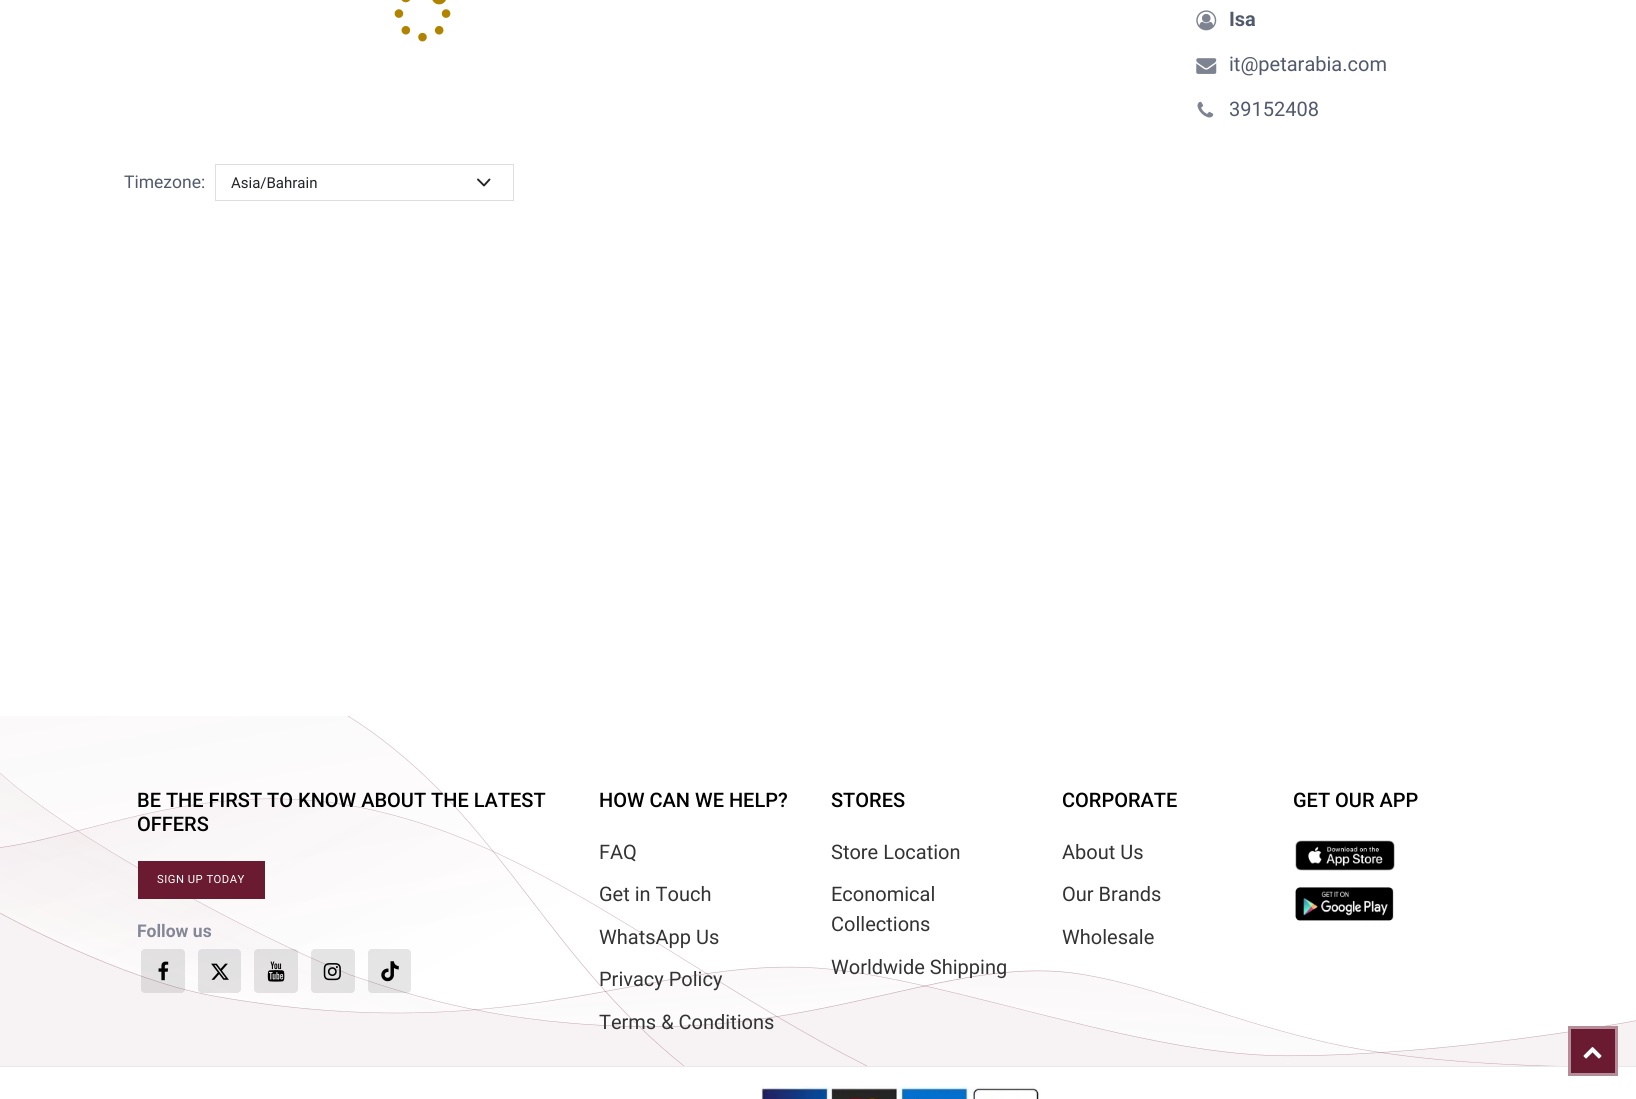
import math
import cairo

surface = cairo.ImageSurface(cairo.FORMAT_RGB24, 1636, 1099)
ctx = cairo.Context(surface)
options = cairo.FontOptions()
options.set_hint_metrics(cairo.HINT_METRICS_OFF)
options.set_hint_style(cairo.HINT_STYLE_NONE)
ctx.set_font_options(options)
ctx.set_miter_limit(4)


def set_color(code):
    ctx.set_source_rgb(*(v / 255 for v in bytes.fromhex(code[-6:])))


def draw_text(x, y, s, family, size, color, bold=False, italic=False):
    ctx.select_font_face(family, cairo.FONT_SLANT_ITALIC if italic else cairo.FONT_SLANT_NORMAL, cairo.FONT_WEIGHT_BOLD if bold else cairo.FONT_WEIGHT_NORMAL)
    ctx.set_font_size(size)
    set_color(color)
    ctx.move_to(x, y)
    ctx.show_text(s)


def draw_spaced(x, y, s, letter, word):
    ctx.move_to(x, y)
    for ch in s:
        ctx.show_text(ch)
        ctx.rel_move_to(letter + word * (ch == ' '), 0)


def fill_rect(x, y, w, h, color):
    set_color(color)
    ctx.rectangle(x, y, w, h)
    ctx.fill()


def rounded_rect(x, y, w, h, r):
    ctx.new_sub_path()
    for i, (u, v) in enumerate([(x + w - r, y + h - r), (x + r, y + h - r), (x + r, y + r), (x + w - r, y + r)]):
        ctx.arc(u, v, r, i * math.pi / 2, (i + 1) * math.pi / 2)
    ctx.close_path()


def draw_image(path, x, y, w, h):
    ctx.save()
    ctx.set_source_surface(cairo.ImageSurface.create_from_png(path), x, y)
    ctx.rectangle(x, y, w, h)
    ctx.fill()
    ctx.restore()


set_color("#ffffff")
ctx.paint()
draw_image("assets/img1.png", 1196, 10, 21, 21)
draw_text(1229, 26, "Isa", "Roboto", 20, "#51596c", bold=True)
draw_image("assets/img2.png", 1196, 58, 21, 16)
draw_text(1229, 71, "it@petarabia.com", "Roboto", 20, "#51596c")
draw_image("assets/img3.png", 1197, 101, 17, 17)
draw_text(1229, 116, "39152408", "Roboto", 20, "#51596c")
draw_image("assets/img4.png", 394, 0, 57, 42)
draw_text(124, 188, "Timezone:", "Roboto", 17.5, "#51596c")
ctx.new_path()
ctx.move_to(478, 179.5)
ctx.line_to(484, 185.5)
ctx.line_to(489.5, 179.5)
set_color("#212529")
ctx.set_line_width(1.9)
ctx.set_line_cap(cairo.LINE_CAP_ROUND)
ctx.set_line_join(cairo.LINE_JOIN_ROUND)
ctx.stroke()
ctx.rectangle(215.5, 164.5, 298, 36)
set_color("#dededf")
ctx.set_line_width(1)
ctx.set_line_cap(cairo.LINE_CAP_BUTT)
ctx.set_line_join(cairo.LINE_JOIN_MITER)
ctx.stroke()
draw_text(231, 188, "Asia/Bahrain", "Roboto", 15, "#212529")
draw_image("assets/img5.png", 0, 716, 1636, 350)
draw_text(137, 807, "BE THE FIRST TO KNOW ABOUT THE LATEST", "Roboto Medium", 20, "#000000")
draw_text(137, 831, "OFFERS", "Roboto Medium", 20, "#000000")
fill_rect(138, 861, 127, 38, "#6b1b31")
ctx.select_font_face("Roboto")
ctx.set_font_size(11.25)
set_color("#ffffff")
draw_spaced(157, 883, "SIGN UP TODAY", 0.5, 0)
draw_text(137, 937, "Follow us", "Roboto", 17.5, "#848896", bold=True)
ctx.set_source_rgba(0, 0, 0, 0.1)
rounded_rect(141, 949, 44, 44, 4)
ctx.fill()
draw_image("assets/img6.png", 158, 961, 11, 20)
rounded_rect(198, 949, 43, 44, 4)
ctx.fill()
draw_image("assets/img7.png", 211, 963, 18, 17)
rounded_rect(254, 949, 44, 44, 4)
ctx.fill()
draw_image("assets/img8.png", 267, 961, 18, 21)
rounded_rect(311, 949, 44, 44, 4)
ctx.fill()
draw_image("assets/img9.png", 323, 963, 18, 18)
rounded_rect(368, 949, 43, 44, 4)
ctx.fill()
draw_image("assets/img10.png", 381, 961, 18, 21)
draw_text(599, 807, "HOW CAN WE HELP?", "Roboto Medium", 20, "#000000")
draw_text(599, 859, "FAQ", "Roboto", 20, "#333333")
draw_text(599, 901, "Get in Touch", "Roboto", 20, "#333333")
draw_text(599, 944, "WhatsApp Us", "Roboto", 20, "#333333")
draw_text(599, 986, "Privacy Policy", "Roboto", 20, "#333333")
draw_text(599, 1029, "Terms & Conditions", "Roboto", 20, "#333333")
draw_text(831, 807, "STORES", "Roboto Medium", 20, "#000000")
draw_text(831, 859, "Store Location", "Roboto", 20, "#333333")
draw_text(831, 901, "Economical", "Roboto", 20, "#333333")
draw_text(831, 931, "Collections", "Roboto", 20, "#333333")
draw_text(831, 974, "Worldwide Shipping", "Roboto", 20, "#333333")
draw_text(1062, 807, "CORPORATE", "Roboto Medium", 20, "#000000")
draw_text(1062, 859, "About Us", "Roboto", 20, "#333333")
draw_text(1062, 901, "Our Brands", "Roboto", 20, "#333333")
draw_text(1062, 944, "Wholesale", "Roboto", 20, "#333333")
draw_text(1293, 807, "GET OUR APP", "Roboto Medium", 20, "#000000")
draw_image("assets/img11.png", 1295, 840, 100, 31)
draw_image("assets/img12.png", 1295, 887, 99, 34)
fill_rect(0, 1066, 1636, 1, "#e9e9ea")
draw_image("assets/img13.png", 761, 1086, 280, 13)
set_color("#6b1b31")
ctx.rectangle(1569.5, 1027.5, 47, 47)
ctx.fill_preserve()
set_color("#b58d98")
ctx.set_line_width(3)
ctx.stroke()
draw_image("assets/img14.png", 1583, 1047, 19, 12)
surface.write_to_png("output.png")
